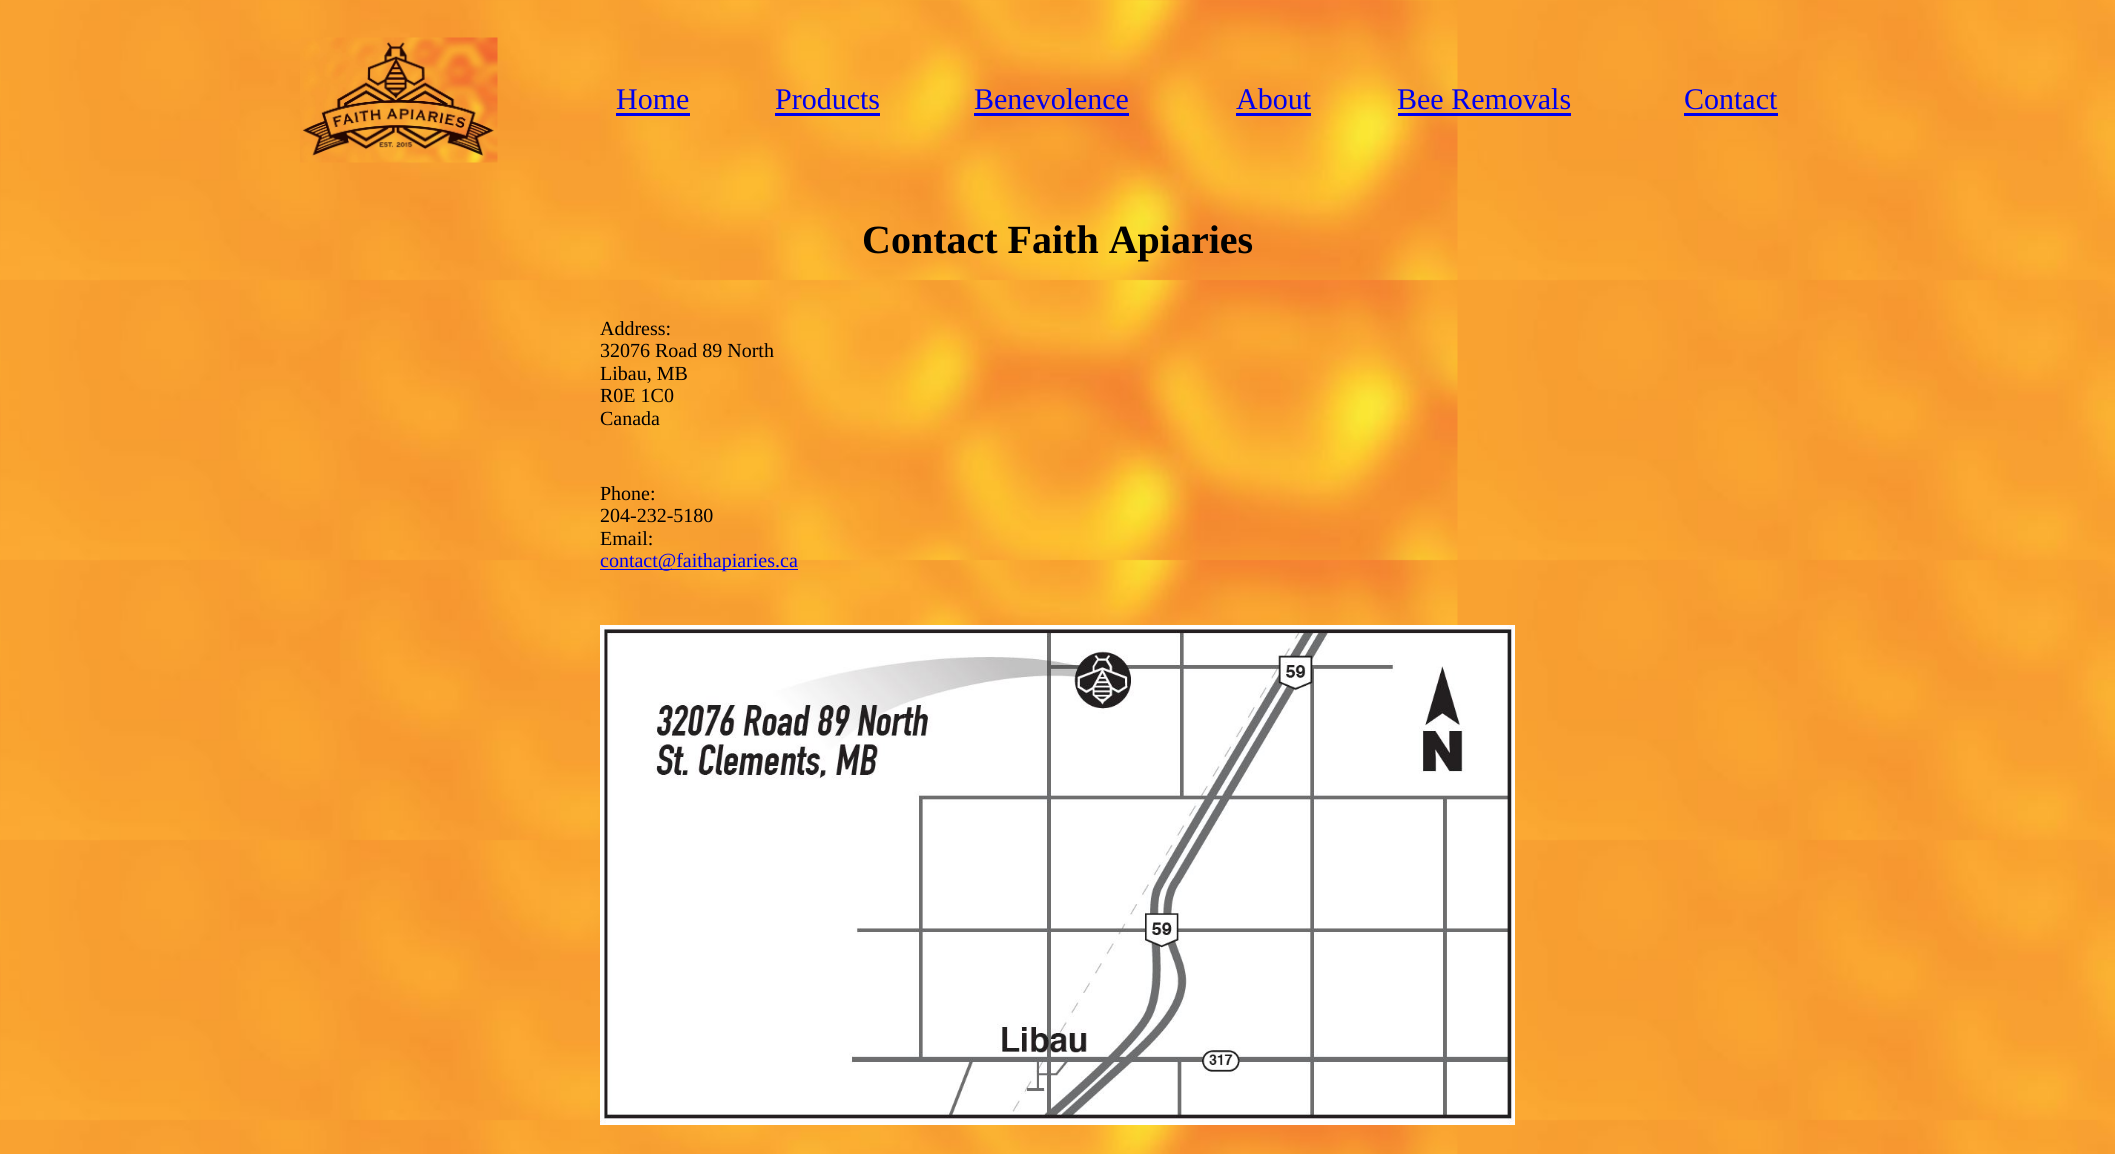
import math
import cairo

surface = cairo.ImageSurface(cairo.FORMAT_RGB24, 2115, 1154)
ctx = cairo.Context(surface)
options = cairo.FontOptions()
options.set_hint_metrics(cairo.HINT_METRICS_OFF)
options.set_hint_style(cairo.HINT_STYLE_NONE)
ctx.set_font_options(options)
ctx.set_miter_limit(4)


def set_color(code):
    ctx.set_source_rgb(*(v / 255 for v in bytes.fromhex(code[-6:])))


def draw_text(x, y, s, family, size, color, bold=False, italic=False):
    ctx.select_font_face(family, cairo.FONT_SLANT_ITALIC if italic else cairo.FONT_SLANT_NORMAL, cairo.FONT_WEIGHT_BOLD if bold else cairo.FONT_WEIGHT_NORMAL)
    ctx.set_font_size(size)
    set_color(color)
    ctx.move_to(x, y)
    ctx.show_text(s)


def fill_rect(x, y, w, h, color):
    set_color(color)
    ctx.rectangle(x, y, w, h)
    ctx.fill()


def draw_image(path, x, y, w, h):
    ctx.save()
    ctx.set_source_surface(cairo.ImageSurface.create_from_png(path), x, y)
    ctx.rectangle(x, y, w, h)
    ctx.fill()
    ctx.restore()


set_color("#ffffff")
ctx.paint()
draw_image("assets/img1.png", 0, 0, 2115, 1154)
draw_image("assets/img2.png", 300, 37, 198, 126)
draw_text(616, 109, "Home", "Liberation Serif", 30, "#0000ee")
fill_rect(616, 113, 74, 3, "#0000ee")
draw_text(775, 109, "Products", "Liberation Serif", 30, "#0000ee")
fill_rect(775, 113, 105, 3, "#0000ee")
draw_text(974, 109, "Benevolence", "Liberation Serif", 30, "#0000ee")
fill_rect(974, 113, 155, 3, "#0000ee")
draw_text(1236, 109, "About", "Liberation Serif", 30, "#0000ee")
fill_rect(1236, 113, 75, 3, "#0000ee")
draw_text(1397, 109, "Bee Removals", "Liberation Serif", 30, "#0000ee")
fill_rect(1398, 113, 173, 3, "#0000ee")
draw_text(1684, 109, "Contact", "Liberation Serif", 30, "#0000ee")
fill_rect(1684, 113, 94, 3, "#0000ee")
draw_text(862, 253, "Contact Faith Apiaries", "Liberation Serif", 40, "#000000", bold=True)
draw_text(600, 335, "Address:", "Liberation Serif", 20, "#000000")
draw_text(600, 357, "32076 Road 89 North", "Liberation Serif", 20, "#000000")
draw_text(600, 380, "Libau, MB", "Liberation Serif", 20, "#000000")
draw_text(600, 402, "R0E 1C0", "Liberation Serif", 20, "#000000")
draw_text(600, 425, "Canada", "Liberation Serif", 20, "#000000")
draw_text(600, 500, "Phone:", "Liberation Serif", 20, "#000000")
draw_text(600, 522, "204-232-5180", "Liberation Serif", 20, "#000000")
draw_text(600, 545, "Email:", "Liberation Serif", 20, "#000000")
fill_rect(600, 569, 198, 1, "#0000ee")
draw_text(600, 567, "contact@faithapiaries.ca", "Liberation Serif", 20, "#0000ee")
draw_image("assets/img3.png", 600, 625, 915, 500)
surface.write_to_png("output.png")
